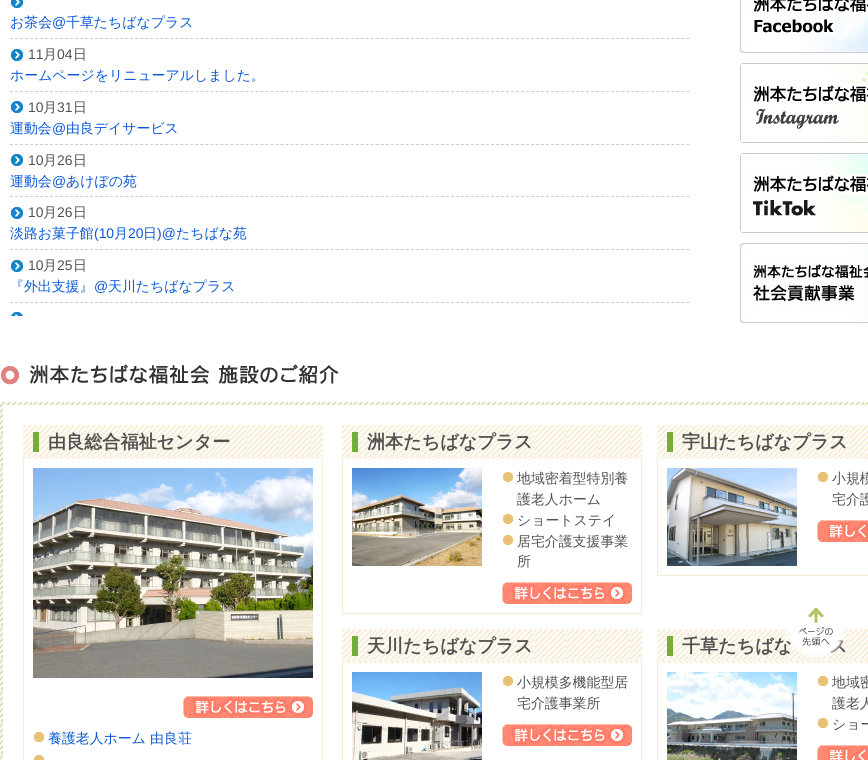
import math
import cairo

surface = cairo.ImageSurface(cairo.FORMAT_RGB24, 868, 760)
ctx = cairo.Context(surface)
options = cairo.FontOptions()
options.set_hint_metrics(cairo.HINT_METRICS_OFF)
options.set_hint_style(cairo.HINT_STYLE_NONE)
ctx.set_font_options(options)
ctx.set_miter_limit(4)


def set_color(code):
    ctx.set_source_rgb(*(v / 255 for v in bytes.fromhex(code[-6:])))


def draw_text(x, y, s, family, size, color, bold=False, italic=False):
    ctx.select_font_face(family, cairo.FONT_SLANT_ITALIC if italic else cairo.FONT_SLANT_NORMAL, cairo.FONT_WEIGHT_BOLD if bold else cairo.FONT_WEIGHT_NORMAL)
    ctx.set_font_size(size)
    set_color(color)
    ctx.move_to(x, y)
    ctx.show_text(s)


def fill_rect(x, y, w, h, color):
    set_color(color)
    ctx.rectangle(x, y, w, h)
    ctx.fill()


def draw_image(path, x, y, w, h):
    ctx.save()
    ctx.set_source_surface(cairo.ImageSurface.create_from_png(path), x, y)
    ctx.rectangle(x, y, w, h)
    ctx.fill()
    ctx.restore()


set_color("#ffffff")
ctx.paint()
ctx.new_path()
ctx.move_to(10, 38.5)
ctx.line_to(690, 38.5)
set_color("#cccccc")
ctx.set_line_width(1)
ctx.set_dash([3, 2.01])
ctx.stroke()
draw_image("assets/img1.png", 11, 0, 12, 8)
draw_text(10, 27, "お茶会", "WenQuanYi Zen Hei Medium", 13.9, "#0957d5")
draw_text(52, 27, "@", "Liberation Sans", 13.9, "#0957d5")
draw_text(66, 27, "千草たちばなプラス", "WenQuanYi Zen Hei Medium", 13.9, "#0957d5")
ctx.new_path()
ctx.move_to(10, 91.5)
ctx.line_to(690, 91.5)
set_color("#cccccc")
ctx.stroke()
draw_image("assets/img2.png", 11, 49, 12, 12)
draw_text(28, 59, "11", "Liberation Sans", 13.9, "#515151")
draw_text(43, 59, "月", "WenQuanYi Zen Hei Medium", 13.9, "#515151")
draw_text(57, 59, "04", "Liberation Sans", 13.9, "#515151")
draw_text(73, 59, "日", "WenQuanYi Zen Hei Medium", 13.9, "#515151")
draw_text(10, 80, "ホームページをリニューアルしました。", "WenQuanYi Zen Hei Medium", 13.9, "#0957d5")
ctx.new_path()
ctx.move_to(10, 144.5)
ctx.line_to(690, 144.5)
set_color("#cccccc")
ctx.stroke()
draw_image("assets/img2.png", 11, 101, 12, 12)
draw_text(28, 112, "10", "Liberation Sans", 13.9, "#515151")
draw_text(43, 112, "月", "WenQuanYi Zen Hei Medium", 13.9, "#515151")
draw_text(57, 112, "31", "Liberation Sans", 13.9, "#515151")
draw_text(73, 112, "日", "WenQuanYi Zen Hei Medium", 13.9, "#515151")
draw_text(10, 133, "運動会", "WenQuanYi Zen Hei Medium", 13.9, "#0957d5")
draw_text(52, 133, "@", "Liberation Sans", 13.9, "#0957d5")
draw_text(66, 133, "由良デイサービス", "WenQuanYi Zen Hei Medium", 13.9, "#0957d5")
ctx.new_path()
ctx.move_to(10, 196.5)
ctx.line_to(690, 196.5)
set_color("#cccccc")
ctx.stroke()
draw_image("assets/img2.png", 11, 154, 12, 12)
draw_text(28, 165, "10", "Liberation Sans", 13.9, "#515151")
draw_text(43, 165, "月", "WenQuanYi Zen Hei Medium", 13.9, "#515151")
draw_text(57, 165, "26", "Liberation Sans", 13.9, "#515151")
draw_text(73, 165, "日", "WenQuanYi Zen Hei Medium", 13.9, "#515151")
draw_text(10, 186, "運動会", "WenQuanYi Zen Hei Medium", 13.9, "#0957d5")
draw_text(52, 186, "@", "Liberation Sans", 13.9, "#0957d5")
draw_text(66, 186, "あけぼの苑", "WenQuanYi Zen Hei Medium", 13.9, "#0957d5")
ctx.new_path()
ctx.move_to(10, 249.5)
ctx.line_to(690, 249.5)
set_color("#cccccc")
ctx.stroke()
draw_image("assets/img2.png", 11, 207, 12, 12)
draw_text(28, 217, "10", "Liberation Sans", 13.9, "#515151")
draw_text(43, 217, "月", "WenQuanYi Zen Hei Medium", 13.9, "#515151")
draw_text(57, 217, "26", "Liberation Sans", 13.9, "#515151")
draw_text(73, 217, "日", "WenQuanYi Zen Hei Medium", 13.9, "#515151")
draw_text(10, 238, "淡路お菓子館", "WenQuanYi Zen Hei Medium", 13.9, "#0957d5")
draw_text(94, 238, "(10", "Liberation Sans", 13.9, "#0957d5")
draw_text(114, 238, "月", "WenQuanYi Zen Hei Medium", 13.9, "#0957d5")
draw_text(128, 238, "20", "Liberation Sans", 13.9, "#0957d5")
draw_text(143, 238, "日", "WenQuanYi Zen Hei Medium", 13.9, "#0957d5")
draw_text(157, 238, ")@", "Liberation Sans", 13.9, "#0957d5")
draw_text(176, 238, "たちばな苑", "WenQuanYi Zen Hei Medium", 13.9, "#0957d5")
ctx.new_path()
ctx.move_to(10, 302.5)
ctx.line_to(690, 302.5)
set_color("#cccccc")
ctx.stroke()
draw_image("assets/img2.png", 11, 260, 12, 12)
draw_text(28, 270, "10", "Liberation Sans", 13.9, "#515151")
draw_text(43, 270, "月", "WenQuanYi Zen Hei Medium", 13.9, "#515151")
draw_text(57, 270, "25", "Liberation Sans", 13.9, "#515151")
draw_text(73, 270, "日", "WenQuanYi Zen Hei Medium", 13.9, "#515151")
draw_text(10, 291, "『外出支援』", "WenQuanYi Zen Hei Medium", 13.9, "#0957d5")
draw_text(94, 291, "@", "Liberation Sans", 13.9, "#0957d5")
draw_text(108, 291, "天川たちばなプラス", "WenQuanYi Zen Hei Medium", 13.9, "#0957d5")
draw_image("assets/img3.png", 11, 312, 12, 4)
draw_image("assets/img4.png", 740, 0, 128, 53)
draw_image("assets/img5.png", 740, 63, 128, 80)
draw_image("assets/img6.png", 740, 153, 128, 80)
draw_image("assets/img7.png", 740, 243, 128, 80)
draw_image("assets/img8.png", 0, 364, 339, 21)
draw_image("assets/img9.png", 0, 402, 868, 358)
fill_rect(3, 405, 865, 355, "#ffffff")
draw_image("assets/img10.png", 23, 425, 300, 34)
fill_rect(33, 432, 6, 20, "#73af36")
draw_text(48, 448, "由良総合福祉センター", "WenQuanYi Zen Hei", 18.1, "#515151", bold=True)
fill_rect(322, 459, 1, 301, "#faebd6")
fill_rect(23, 459, 1, 301, "#faebd6")
draw_image("assets/img11.png", 33, 468, 280, 210)
draw_image("assets/img12.png", 183, 696, 130, 22)
draw_image("assets/img13.png", 34, 732, 10, 10)
draw_text(48, 743, "養護老人ホーム 由良荘", "WenQuanYi Zen Hei Medium", 13.9, "#0957d5")
draw_image("assets/img14.png", 34, 755, 10, 5)
draw_image("assets/img10.png", 342, 425, 300, 34)
fill_rect(352, 432, 6, 20, "#73af36")
draw_text(367, 448, "洲本たちばなプラス", "WenQuanYi Zen Hei", 18.1, "#515151", bold=True)
fill_rect(641, 459, 1, 155, "#faebd6")
fill_rect(342, 613, 300, 1, "#faebd6")
fill_rect(342, 459, 1, 155, "#faebd6")
draw_image("assets/img15.png", 352, 468, 130, 98)
draw_image("assets/img13.png", 503, 472, 10, 10)
draw_text(517, 483, "地域密着型特別養", "WenQuanYi Zen Hei Medium", 13.9, "#515151")
draw_text(517, 504, "護老人ホーム", "WenQuanYi Zen Hei Medium", 13.9, "#515151")
draw_image("assets/img13.png", 503, 514, 10, 10)
draw_text(517, 525, "ショートステイ", "WenQuanYi Zen Hei Medium", 13.9, "#515151")
draw_image("assets/img13.png", 503, 535, 10, 10)
draw_text(517, 546, "居宅介護支援事業", "WenQuanYi Zen Hei Medium", 13.9, "#515151")
draw_text(517, 566, "所", "WenQuanYi Zen Hei Medium", 13.9, "#515151")
draw_image("assets/img12.png", 502, 582, 130, 22)
draw_image("assets/img16.png", 657, 425, 211, 34)
fill_rect(667, 432, 6, 20, "#73af36")
draw_text(682, 448, "宇山たちばなプラス", "WenQuanYi Zen Hei", 18.1, "#515151", bold=True)
fill_rect(657, 575, 211, 1, "#faebd6")
fill_rect(657, 459, 1, 117, "#faebd6")
draw_image("assets/img17.png", 667, 468, 130, 98)
draw_image("assets/img13.png", 818, 472, 10, 10)
draw_text(832, 483, "小規模", "WenQuanYi Zen Hei Medium", 13.9, "#515151")
draw_text(832, 504, "宅介護", "WenQuanYi Zen Hei Medium", 13.9, "#515151")
draw_image("assets/img18.png", 817, 520, 51, 22)
draw_image("assets/img10.png", 342, 629, 300, 34)
fill_rect(352, 636, 6, 20, "#73af36")
draw_text(367, 652, "天川たちばなプラス", "WenQuanYi Zen Hei", 18.1, "#515151", bold=True)
fill_rect(641, 663, 1, 97, "#faebd6")
fill_rect(342, 663, 1, 97, "#faebd6")
draw_image("assets/img19.png", 352, 672, 130, 88)
draw_image("assets/img13.png", 503, 676, 10, 10)
draw_text(517, 687, "小規模多機能型居", "WenQuanYi Zen Hei Medium", 13.9, "#515151")
draw_text(517, 708, "宅介護事業所", "WenQuanYi Zen Hei Medium", 13.9, "#515151")
draw_image("assets/img12.png", 502, 724, 130, 22)
draw_image("assets/img16.png", 657, 629, 211, 34)
fill_rect(667, 636, 6, 20, "#73af36")
draw_text(682, 652, "千草たちばな", "WenQuanYi Zen Hei", 18.1, "#515151", bold=True)
draw_text(829, 652, "ス", "WenQuanYi Zen Hei", 18.1, "#515151", bold=True)
fill_rect(657, 663, 1, 97, "#faebd6")
draw_image("assets/img20.png", 667, 672, 130, 88)
draw_image("assets/img13.png", 818, 676, 10, 10)
draw_text(832, 687, "地域密", "WenQuanYi Zen Hei Medium", 13.9, "#515151")
draw_text(832, 708, "護老人", "WenQuanYi Zen Hei Medium", 13.9, "#515151")
draw_image("assets/img13.png", 818, 718, 10, 10)
draw_text(832, 729, "ショー", "WenQuanYi Zen Hei Medium", 13.9, "#515151")
draw_image("assets/img21.png", 817, 745, 51, 15)
draw_image("assets/img22.png", 786, 607, 60, 51)
surface.write_to_png("output.png")
